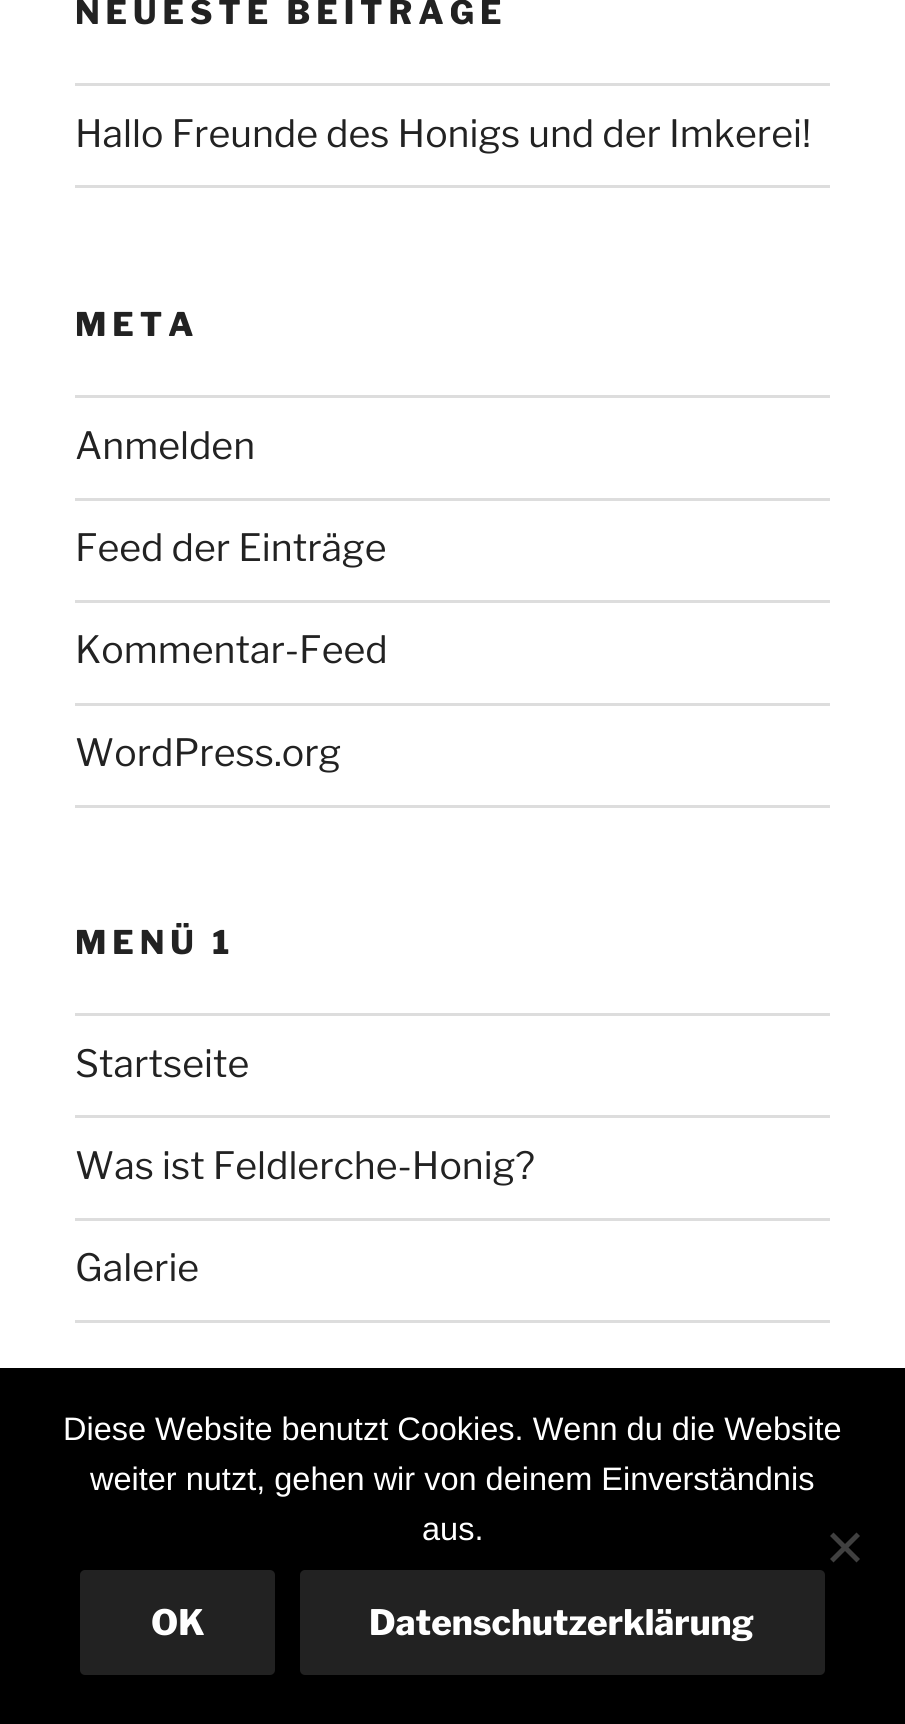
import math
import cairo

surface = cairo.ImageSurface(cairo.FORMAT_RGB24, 905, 1724)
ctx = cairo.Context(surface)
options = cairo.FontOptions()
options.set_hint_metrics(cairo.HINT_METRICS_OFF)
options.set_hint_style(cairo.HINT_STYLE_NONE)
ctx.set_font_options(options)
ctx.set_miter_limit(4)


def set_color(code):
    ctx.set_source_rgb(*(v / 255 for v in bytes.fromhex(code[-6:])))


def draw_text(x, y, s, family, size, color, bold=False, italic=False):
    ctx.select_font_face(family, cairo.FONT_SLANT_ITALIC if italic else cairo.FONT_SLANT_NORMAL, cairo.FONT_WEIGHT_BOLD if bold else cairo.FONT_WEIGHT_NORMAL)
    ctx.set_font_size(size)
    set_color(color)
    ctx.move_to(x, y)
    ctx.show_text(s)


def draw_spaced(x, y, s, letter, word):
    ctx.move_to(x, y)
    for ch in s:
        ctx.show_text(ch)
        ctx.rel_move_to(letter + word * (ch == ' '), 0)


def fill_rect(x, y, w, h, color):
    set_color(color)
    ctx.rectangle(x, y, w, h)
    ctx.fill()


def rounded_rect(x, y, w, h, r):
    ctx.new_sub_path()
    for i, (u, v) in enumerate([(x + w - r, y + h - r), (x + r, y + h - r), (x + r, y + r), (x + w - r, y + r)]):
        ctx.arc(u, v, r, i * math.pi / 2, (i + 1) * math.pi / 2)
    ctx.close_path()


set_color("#ffffff")
ctx.paint()
ctx.select_font_face("Libre Franklin Thin")
ctx.set_font_size(32.5)
set_color("#222222")
draw_spaced(75, 24, "NEUESTE BEITRÄGE", 5.9, 0)
fill_rect(75, 83, 755, 3, "#dddddd")
fill_rect(75, 185, 755, 3, "#dddddd")
draw_text(75, 147, "Hallo Freunde des Honigs und der Imkerei!", "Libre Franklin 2 Thin", 37.5, "#222222")
ctx.select_font_face("Libre Franklin Thin")
ctx.set_font_size(32.5)
draw_spaced(75, 336, "META", 5.9, 0)
fill_rect(75, 395, 755, 3, "#dddddd")
fill_rect(75, 498, 755, 3, "#dddddd")
draw_text(75, 459, "Anmelden", "Libre Franklin 2 Thin", 37.5, "#222222")
fill_rect(75, 600, 755, 3, "#dddddd")
draw_text(75, 561, "Feed der Einträge", "Libre Franklin 2 Thin", 37.5, "#222222")
fill_rect(75, 703, 755, 3, "#dddddd")
draw_text(75, 663, "Kommentar-Feed", "Libre Franklin 2 Thin", 37.5, "#222222")
fill_rect(75, 805, 755, 3, "#dddddd")
draw_text(75, 766, "WordPress.org", "Libre Franklin 2 Thin", 37.5, "#222222")
ctx.select_font_face("Libre Franklin Thin")
ctx.set_font_size(32.5)
draw_spaced(75, 954, "MENÜ 1", 5.9, 0)
fill_rect(75, 1013, 755, 3, "#dddddd")
fill_rect(75, 1115, 755, 3, "#dddddd")
draw_text(75, 1077, "Startseite", "Libre Franklin 2 Thin", 37.5, "#222222")
fill_rect(75, 1218, 755, 3, "#dddddd")
draw_text(75, 1179, "Was ist Feldlerche-Honig?", "Libre Franklin 2 Thin", 37.5, "#222222")
fill_rect(75, 1320, 755, 3, "#dddddd")
draw_text(75, 1281, "Galerie", "Libre Franklin 2 Thin", 37.5, "#222222")
fill_rect(0, 1368, 905, 356, "#000000")
draw_text(63, 1440, "Diese Website benutzt Cookies. Wenn du die Website", "Liberation Sans", 32.5, "#ffffff")
draw_text(90, 1490, "weiter nutzt, gehen wir von deinem Einverständnis", "Liberation Sans", 32.5, "#ffffff")
draw_text(422, 1540, "aus.", "Liberation Sans", 32.5, "#ffffff")
set_color("#404040")
ctx.new_path()
ctx.move_to(856.5, 1532.5)
ctx.line_to(860, 1536)
ctx.line_to(833.5, 1562.5)
ctx.line_to(830, 1559)
ctx.close_path()
ctx.fill()
ctx.new_path()
ctx.move_to(830, 1536)
ctx.line_to(833.5, 1532.5)
ctx.line_to(860, 1559)
ctx.line_to(856.5, 1562.5)
ctx.close_path()
ctx.fill()
set_color("#222222")
rounded_rect(80, 1570, 195, 105, 5)
ctx.fill()
draw_text(151, 1635, "OK", "Libre Franklin Thin", 35, "#ffffff")
set_color("#222222")
rounded_rect(300, 1570, 525, 105, 5)
ctx.fill()
draw_text(369, 1635, "Datenschutzerklärung", "Libre Franklin Thin", 35, "#ffffff")
surface.write_to_png("output.png")
